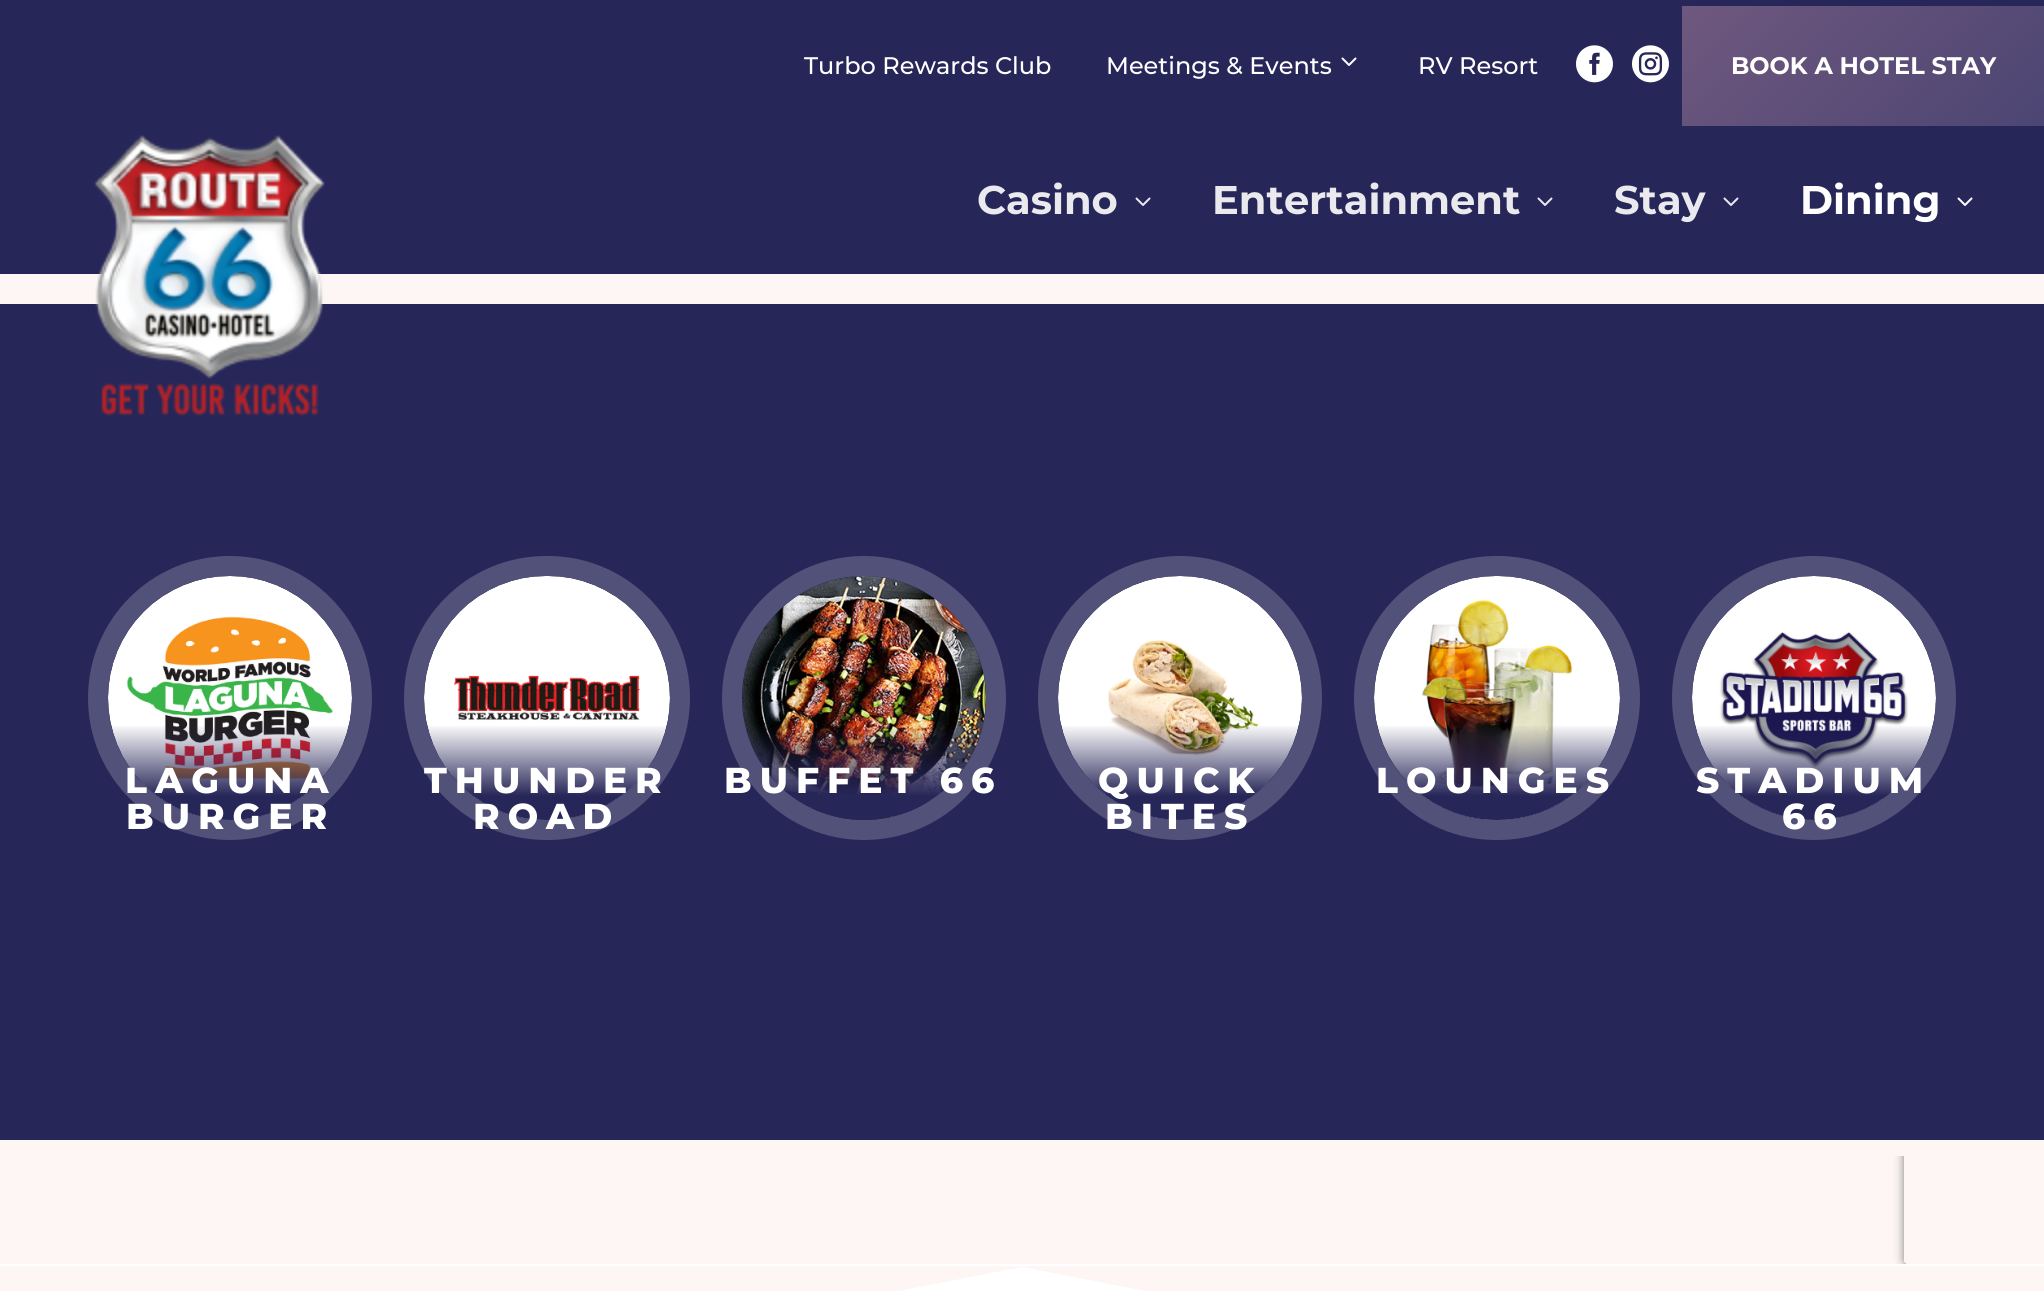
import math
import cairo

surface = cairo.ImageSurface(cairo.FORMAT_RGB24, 2044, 1291)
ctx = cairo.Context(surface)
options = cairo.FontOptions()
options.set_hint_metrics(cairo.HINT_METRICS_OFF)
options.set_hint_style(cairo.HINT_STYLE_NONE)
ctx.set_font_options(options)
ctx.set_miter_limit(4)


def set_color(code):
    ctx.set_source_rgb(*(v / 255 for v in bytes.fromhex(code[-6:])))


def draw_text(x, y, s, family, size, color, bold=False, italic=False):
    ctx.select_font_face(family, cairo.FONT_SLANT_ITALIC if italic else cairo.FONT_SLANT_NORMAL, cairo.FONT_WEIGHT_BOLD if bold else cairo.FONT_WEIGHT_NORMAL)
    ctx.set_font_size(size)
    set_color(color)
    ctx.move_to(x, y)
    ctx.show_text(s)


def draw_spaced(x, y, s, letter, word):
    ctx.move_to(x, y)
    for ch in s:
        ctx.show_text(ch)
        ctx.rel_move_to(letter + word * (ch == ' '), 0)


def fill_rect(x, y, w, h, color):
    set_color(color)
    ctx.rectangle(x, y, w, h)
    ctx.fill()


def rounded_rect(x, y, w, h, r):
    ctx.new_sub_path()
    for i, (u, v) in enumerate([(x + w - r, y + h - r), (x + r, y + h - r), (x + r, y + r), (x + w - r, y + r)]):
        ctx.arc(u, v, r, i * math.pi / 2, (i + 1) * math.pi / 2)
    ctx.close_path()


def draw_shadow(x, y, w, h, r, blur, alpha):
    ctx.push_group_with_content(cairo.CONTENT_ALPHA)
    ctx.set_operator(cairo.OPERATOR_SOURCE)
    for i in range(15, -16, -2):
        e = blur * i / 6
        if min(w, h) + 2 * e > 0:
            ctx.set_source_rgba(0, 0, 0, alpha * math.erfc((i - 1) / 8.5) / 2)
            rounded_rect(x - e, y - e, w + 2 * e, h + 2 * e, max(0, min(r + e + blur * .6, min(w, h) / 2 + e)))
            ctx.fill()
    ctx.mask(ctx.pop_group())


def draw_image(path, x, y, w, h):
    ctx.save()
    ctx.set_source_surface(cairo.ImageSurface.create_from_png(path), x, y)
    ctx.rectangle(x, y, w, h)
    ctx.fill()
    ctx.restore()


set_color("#fef6f5")
ctx.paint()
fill_rect(0, 0, 2044, 274, "#272658")
draw_text(804, 74, "Turbo Rewards Club", "Montserrat Medium", 24, "#ffffff")
draw_text(1106, 74, "Meetings & Events", "Montserrat Medium", 24, "#ffffff")
draw_image("assets/img1.png", 1341, 57, 16, 9)
draw_text(1418, 74, "RV Resort", "Montserrat Medium", 24, "#ffffff")
draw_image("assets/img2.png", 1576, 45, 37, 38)
draw_image("assets/img3.png", 1632, 45, 37, 38)
gradient = cairo.LinearGradient(1743, -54, 1984, 187)
gradient.add_color_stop_rgba(0, 0.435, 0.345, 0.494, 1)
gradient.add_color_stop_rgba(1, 0.298, 0.271, 0.451, 1)
ctx.set_source(gradient)
ctx.rectangle(1682, 6, 362, 120)
ctx.fill()
draw_text(1731, 74, "BOOK A HOTEL STAY", "Montserrat", 24, "#ffffff", bold=True)
ctx.save()
ctx.set_fill_rule(cairo.FILL_RULE_EVEN_ODD)
ctx.new_path()
ctx.move_to(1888, 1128)
ctx.line_to(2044, 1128)
ctx.line_to(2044, 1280)
ctx.line_to(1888, 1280)
ctx.close_path()
ctx.move_to(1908, 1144)
ctx.line_to(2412, 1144)
ctx.curve_to(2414, 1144, 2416, 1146, 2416, 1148)
ctx.line_to(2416, 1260)
ctx.curve_to(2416, 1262, 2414, 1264, 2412, 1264)
ctx.line_to(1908, 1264)
ctx.curve_to(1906, 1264, 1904, 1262, 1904, 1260)
ctx.line_to(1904, 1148)
ctx.curve_to(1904, 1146, 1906, 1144, 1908, 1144)
ctx.close_path()
ctx.clip()
set_color("#808080")
draw_shadow(1904, 1144, 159, 120, 4, 5, 1)
ctx.restore()
ctx.set_source_rgba(0.996, 0.965, 0.961, 0.5)
ctx.new_path()
ctx.move_to(1022, 1155)
ctx.line_to(0, 956)
ctx.line_to(0, 1156)
ctx.line_to(2044, 1156)
ctx.line_to(2044, 956)
ctx.close_path()
ctx.fill()
set_color("#fef6f5")
ctx.new_path()
ctx.move_to(1022, 1155)
ctx.line_to(0, 1016)
ctx.line_to(0, 1156)
ctx.line_to(2044, 1156)
ctx.line_to(2044, 1016)
ctx.close_path()
ctx.fill()
fill_rect(0, 304, 2044, 836, "#272658")
draw_image("assets/img4.png", 94, 135, 231, 281)
draw_text(977, 214, "Casino", "Montserrat", 40, "#e9e9ee", bold=True)
draw_image("assets/img5.png", 1135, 197, 16, 9)
draw_text(1212, 214, "Entertainment", "Montserrat", 40, "#e9e9ee", bold=True)
draw_image("assets/img5.png", 1537, 197, 16, 9)
draw_text(1614, 214, "Stay", "Montserrat", 40, "#e9e9ee", bold=True)
draw_image("assets/img5.png", 1723, 197, 16, 9)
draw_text(1800, 214, "Dining", "Montserrat", 40, "#ffffff", bold=True)
draw_image("assets/img1.png", 1957, 197, 16, 9)
ctx.arc(230, 698, 132, 0, 2 * math.pi)
set_color("#525179")
ctx.set_line_width(20)
ctx.stroke()
draw_image("assets/img6.png", 108, 576, 244, 244)
ctx.save()
rounded_rect(108, 576, 244, 244, 122)
ctx.clip()
gradient = cairo.LinearGradient(230, 724, 230, 820)
gradient.add_color_stop_rgba(0, 0.153, 0.149, 0.345, 0)
gradient.add_color_stop_rgba(0.75, 0.153, 0.149, 0.345, 1)
gradient.add_color_stop_rgba(1, 0.153, 0.149, 0.345, 1)
ctx.set_source(gradient)
ctx.rectangle(111, 726, 238, 94)
ctx.fill()
ctx.restore()
ctx.select_font_face("Montserrat ExtraBold")
ctx.set_font_size(36)
set_color("#ffffff")
draw_spaced(125, 793, "LAGUNA", 8, 0)
draw_spaced(126, 829, "BURGER", 8, 0)
rounded_rect(414, 566, 266, 264, 132)
set_color("#525179")
ctx.stroke()
draw_image("assets/img7.png", 424, 576, 246, 244)
ctx.save()
rounded_rect(424, 576, 246, 244, 122)
ctx.clip()
gradient = cairo.LinearGradient(547, 724, 547, 820)
gradient.add_color_stop_rgba(0, 0.153, 0.149, 0.345, 0)
gradient.add_color_stop_rgba(0.75, 0.153, 0.149, 0.345, 1)
gradient.add_color_stop_rgba(1, 0.153, 0.149, 0.345, 1)
ctx.set_source(gradient)
ctx.rectangle(427, 726, 240, 94)
ctx.fill()
ctx.restore()
set_color("#ffffff")
draw_spaced(424, 793, "THUNDER", 8, 0)
draw_spaced(473, 829, "ROAD", 8, 0)
ctx.new_path()
ctx.arc(864, 698, 132, 0, 2 * math.pi)
set_color("#525179")
ctx.stroke()
draw_image("assets/img8.png", 742, 576, 244, 244)
ctx.save()
rounded_rect(742, 576, 244, 244, 122)
ctx.clip()
gradient = cairo.LinearGradient(864, 724, 864, 820)
gradient.add_color_stop_rgba(0, 0.153, 0.149, 0.345, 0)
gradient.add_color_stop_rgba(0.75, 0.153, 0.149, 0.345, 1)
gradient.add_color_stop_rgba(1, 0.153, 0.149, 0.345, 1)
ctx.set_source(gradient)
ctx.rectangle(745, 726, 238, 94)
ctx.fill()
ctx.restore()
set_color("#ffffff")
draw_spaced(724, 793, "BUFFET 66", 8, 0)
ctx.new_path()
ctx.arc(1180, 698, 132, 0, 2 * math.pi)
set_color("#525179")
ctx.stroke()
draw_image("assets/img9.png", 1058, 576, 244, 244)
ctx.save()
rounded_rect(1058, 576, 244, 244, 122)
ctx.clip()
gradient = cairo.LinearGradient(1180, 724, 1180, 820)
gradient.add_color_stop_rgba(0, 0.153, 0.149, 0.345, 0)
gradient.add_color_stop_rgba(0.75, 0.153, 0.149, 0.345, 1)
gradient.add_color_stop_rgba(1, 0.153, 0.149, 0.345, 1)
ctx.set_source(gradient)
ctx.rectangle(1061, 726, 238, 94)
ctx.fill()
ctx.restore()
set_color("#ffffff")
draw_spaced(1098, 793, "QUICK", 8, 0)
draw_spaced(1105, 829, "BITES", 8, 0)
rounded_rect(1364, 566, 266, 264, 132)
set_color("#525179")
ctx.stroke()
draw_image("assets/img10.png", 1374, 576, 246, 244)
ctx.save()
rounded_rect(1374, 576, 246, 244, 122)
ctx.clip()
gradient = cairo.LinearGradient(1497, 724, 1497, 820)
gradient.add_color_stop_rgba(0, 0.153, 0.149, 0.345, 0)
gradient.add_color_stop_rgba(0.75, 0.153, 0.149, 0.345, 1)
gradient.add_color_stop_rgba(1, 0.153, 0.149, 0.345, 1)
ctx.set_source(gradient)
ctx.rectangle(1377, 726, 240, 94)
ctx.fill()
ctx.restore()
set_color("#ffffff")
draw_spaced(1376, 793, "LOUNGES", 8, 0)
ctx.new_path()
ctx.arc(1814, 698, 132, 0, 2 * math.pi)
set_color("#525179")
ctx.stroke()
draw_image("assets/img11.png", 1692, 576, 244, 244)
ctx.save()
rounded_rect(1692, 576, 244, 244, 122)
ctx.clip()
gradient = cairo.LinearGradient(1814, 724, 1814, 820)
gradient.add_color_stop_rgba(0, 0.153, 0.149, 0.345, 0)
gradient.add_color_stop_rgba(0.75, 0.153, 0.149, 0.345, 1)
gradient.add_color_stop_rgba(1, 0.153, 0.149, 0.345, 1)
ctx.set_source(gradient)
ctx.rectangle(1695, 726, 238, 94)
ctx.fill()
ctx.restore()
set_color("#ffffff")
draw_spaced(1696, 793, "STADIUM", 8, 0)
draw_spaced(1782, 829, "66", 8, 0)
fill_rect(0, 1264, 2044, 27, "#ffffff")
set_color("#fef6f5")
ctx.new_path()
ctx.move_to(1022, 1267)
ctx.line_to(0, 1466)
ctx.line_to(0, 1266)
ctx.line_to(2044, 1266)
ctx.line_to(2044, 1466)
ctx.close_path()
ctx.fill()
surface.write_to_png("output.png")
